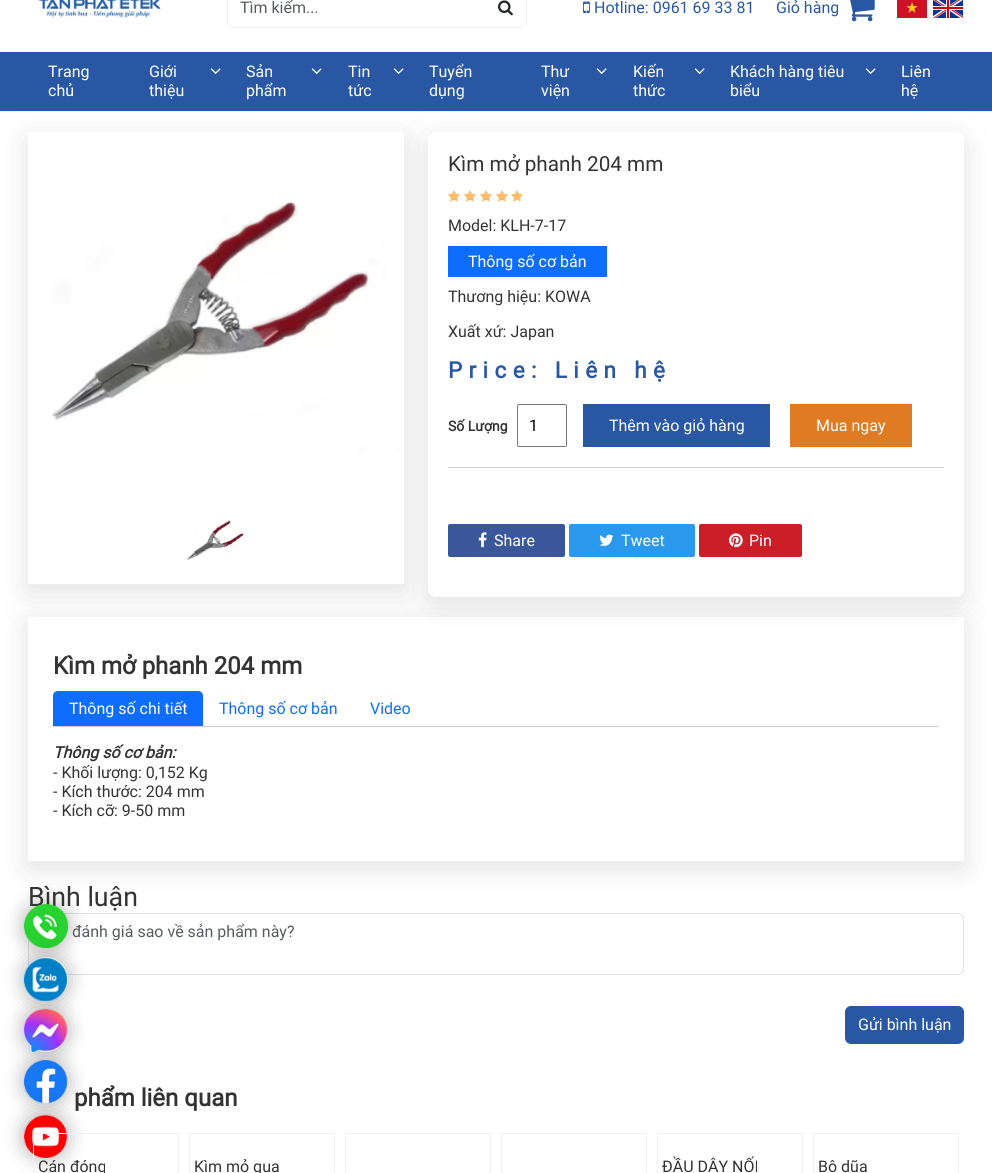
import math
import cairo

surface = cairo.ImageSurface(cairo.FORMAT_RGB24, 992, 1173)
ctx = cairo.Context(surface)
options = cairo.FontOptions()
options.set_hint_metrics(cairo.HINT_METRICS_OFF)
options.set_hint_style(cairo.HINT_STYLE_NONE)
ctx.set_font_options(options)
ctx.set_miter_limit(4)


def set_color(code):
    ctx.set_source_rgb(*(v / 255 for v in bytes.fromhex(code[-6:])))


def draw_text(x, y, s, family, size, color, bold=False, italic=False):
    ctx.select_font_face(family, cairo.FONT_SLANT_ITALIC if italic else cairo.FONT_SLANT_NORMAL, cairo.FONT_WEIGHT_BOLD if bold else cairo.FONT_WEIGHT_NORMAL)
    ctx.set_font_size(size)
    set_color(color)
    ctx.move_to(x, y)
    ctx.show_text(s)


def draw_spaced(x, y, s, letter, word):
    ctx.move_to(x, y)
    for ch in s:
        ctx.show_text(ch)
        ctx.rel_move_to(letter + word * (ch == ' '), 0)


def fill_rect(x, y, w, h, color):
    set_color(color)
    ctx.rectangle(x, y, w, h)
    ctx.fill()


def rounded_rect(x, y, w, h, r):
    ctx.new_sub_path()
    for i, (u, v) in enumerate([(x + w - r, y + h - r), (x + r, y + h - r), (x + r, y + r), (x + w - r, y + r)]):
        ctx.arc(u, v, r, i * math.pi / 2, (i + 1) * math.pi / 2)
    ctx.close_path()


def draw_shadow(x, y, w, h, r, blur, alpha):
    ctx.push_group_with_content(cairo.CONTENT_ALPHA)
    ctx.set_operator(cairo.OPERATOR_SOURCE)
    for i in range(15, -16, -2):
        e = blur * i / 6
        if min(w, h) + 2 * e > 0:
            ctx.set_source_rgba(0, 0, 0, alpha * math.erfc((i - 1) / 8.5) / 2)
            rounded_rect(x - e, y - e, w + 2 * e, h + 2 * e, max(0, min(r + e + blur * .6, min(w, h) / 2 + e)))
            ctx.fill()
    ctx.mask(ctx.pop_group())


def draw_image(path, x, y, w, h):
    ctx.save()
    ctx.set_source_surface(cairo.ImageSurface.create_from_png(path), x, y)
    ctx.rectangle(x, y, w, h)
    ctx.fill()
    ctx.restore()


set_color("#ffffff")
ctx.paint()
fill_rect(0, 111, 992, 1, "#efefef")
draw_image("assets/img1.png", 38, 0, 123, 18)
rounded_rect(227.5, -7.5, 299, 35, 6.5)
ctx.set_line_width(1)
ctx.stroke()
set_color("#ffffff")
ctx.new_path()
ctx.move_to(234, -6)
ctx.line_to(486, -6)
ctx.line_to(486, 27)
ctx.line_to(234, 27)
ctx.curve_to(230.5, 27, 228, 24.5, 228, 21)
ctx.line_to(228, 0)
ctx.curve_to(228, -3.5, 230.5, -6, 234, -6)
ctx.close_path()
ctx.fill()
draw_text(240, 13, "Tìm kiếm...", "Roboto", 16, "#595c5f")
draw_image("assets/img2.png", 498, 0, 15, 16)
draw_image("assets/img3.png", 583, 1, 7, 12)
draw_text(594, 13, "Hotline: 0961 69 33 81", "Roboto", 16, "#2957a4")
draw_text(776, 13, "Giỏ hàng", "Roboto", 16, "#2957a4")
draw_image("assets/img4.png", 850, 0, 25, 22)
draw_image("assets/img5.png", 897, 0, 30, 18)
draw_image("assets/img6.png", 933, 0, 30, 18)
fill_rect(0, 52, 992, 59, "#2957a4")
draw_text(48, 77, "Trang", "Roboto", 16, "#ffffff")
ctx.save()
ctx.set_fill_rule(cairo.FILL_RULE_EVEN_ODD)
ctx.new_path()
ctx.move_to(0, 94)
ctx.line_to(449, 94)
ctx.line_to(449, 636)
ctx.line_to(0, 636)
ctx.close_path()
ctx.move_to(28, 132)
ctx.line_to(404, 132)
ctx.line_to(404, 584)
ctx.line_to(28, 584)
ctx.close_path()
ctx.clip()
set_color("#64646f")
draw_shadow(28, 139, 376, 452, 0, 14.5, 0.2)
ctx.restore()
draw_text(48, 96, "chủ", "Roboto", 16, "#ffffff")
draw_text(149, 77, "Giới", "Roboto", 16, "#ffffff")
draw_text(149, 96, "thiệu", "Roboto", 16, "#ffffff")
draw_image("assets/img7.png", 210, 68, 11, 6)
draw_text(246, 77, "Sản", "Roboto", 16, "#ffffff")
draw_text(246, 96, "phẩm", "Roboto", 16, "#ffffff")
draw_image("assets/img7.png", 311, 68, 11, 6)
draw_text(348, 77, "Tin", "Roboto", 16, "#ffffff")
draw_text(348, 96, "tức", "Roboto", 16, "#ffffff")
draw_image("assets/img7.png", 393, 68, 11, 6)
draw_text(429, 77, "Tuyển", "Roboto", 16, "#ffffff")
ctx.save()
ctx.set_fill_rule(cairo.FILL_RULE_EVEN_ODD)
ctx.new_path()
ctx.move_to(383, 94)
ctx.line_to(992, 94)
ctx.line_to(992, 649)
ctx.line_to(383, 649)
ctx.close_path()
ctx.move_to(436, 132)
ctx.line_to(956, 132)
ctx.curve_to(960.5, 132, 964, 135.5, 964, 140)
ctx.line_to(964, 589)
ctx.curve_to(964, 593.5, 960.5, 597, 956, 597)
ctx.line_to(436, 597)
ctx.curve_to(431.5, 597, 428, 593.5, 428, 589)
ctx.line_to(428, 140)
ctx.curve_to(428, 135.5, 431.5, 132, 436, 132)
ctx.close_path()
ctx.clip()
set_color("#64646f")
draw_shadow(428, 139, 536, 465, 8, 14.5, 0.2)
ctx.restore()
draw_text(429, 96, "dụng", "Roboto", 16, "#ffffff")
draw_text(541, 77, "Thư", "Roboto", 16, "#ffffff")
draw_text(541, 96, "viện", "Roboto", 16, "#ffffff")
draw_image("assets/img7.png", 596, 68, 11, 6)
draw_text(633, 77, "Kiến", "Roboto", 16, "#ffffff")
draw_text(633, 96, "thức", "Roboto", 16, "#ffffff")
draw_image("assets/img7.png", 694, 68, 11, 6)
draw_text(730, 77, "Khách hàng tiêu", "Roboto", 16, "#ffffff")
draw_text(730, 96, "biểu", "Roboto", 16, "#ffffff")
draw_image("assets/img7.png", 865, 68, 11, 6)
draw_text(901, 77, "Liên", "Roboto", 16, "#ffffff")
draw_text(901, 96, "hệ", "Roboto", 16, "#ffffff")
draw_image("assets/img8.png", 51, 201, 348, 251)
draw_image("assets/img9.png", 186, 520, 58, 41)
draw_text(448, 171, "Kìm mở phanh 204 mm", "Roboto", 20.75, "#333333")
draw_image("assets/img10.png", 448, 190, 12, 12)
draw_image("assets/img10.png", 464, 190, 12, 12)
draw_image("assets/img10.png", 480, 190, 12, 12)
draw_image("assets/img10.png", 496, 190, 12, 12)
draw_image("assets/img10.png", 511, 190, 12, 12)
draw_text(448, 231, "Model: KLH-7-17", "Roboto", 16, "#333333")
fill_rect(448, 246, 159, 31, "#0d6efd")
draw_text(468, 267, "Thông số cơ bản", "Roboto", 16, "#ffffff")
draw_text(448, 302, "Thương hiệu: KOWA", "Roboto", 16, "#333333")
draw_text(448, 337, "Xuất xứ: Japan", "Roboto", 16, "#333333")
ctx.select_font_face("Roboto", cairo.FONT_SLANT_NORMAL, cairo.FONT_WEIGHT_BOLD)
ctx.set_font_size(22.5)
set_color("#2957a4")
draw_spaced(448, 378, "Price: Liên hệ", 6.4, 0)
draw_text(448, 431, "Số Lượng", "Roboto", 14, "#333333", bold=True)
rounded_rect(517.5, 404.5, 49, 42, 1.5)
set_color("#767676")
ctx.stroke()
draw_text(529, 431, "1", "Roboto", 16, "#000000")
fill_rect(583, 404, 187, 43, "#2957a4")
draw_text(609, 431, "Thêm vào giỏ hàng", "Roboto", 16, "#ffffff")
fill_rect(790, 404, 122, 43, "#df7b23")
draw_text(816, 431, "Mua ngay", "Roboto", 16, "#ffffff")
fill_rect(448, 467, 496, 1, "#cccccc")
set_color("#3a5899")
rounded_rect(448, 524, 117, 33, 2)
ctx.fill()
draw_image("assets/img11.png", 478, 532, 9, 16)
draw_text(494, 546, "Share", "Roboto", 16, "#ffffff")
set_color("#2a99ed")
rounded_rect(569, 524, 126, 33, 2)
ctx.fill()
draw_image("assets/img12.png", 599, 534, 15, 12)
draw_text(621, 546, "Tweet", "Roboto", 16, "#ffffff")
set_color("#cb1e26")
rounded_rect(699, 524, 103, 33, 2)
ctx.fill()
draw_image("assets/img13.png", 729, 533, 14, 15)
draw_text(749, 546, "Pin", "Roboto", 16, "#ffffff")
ctx.save()
ctx.set_fill_rule(cairo.FILL_RULE_EVEN_ODD)
ctx.new_path()
ctx.move_to(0, 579)
ctx.line_to(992, 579)
ctx.line_to(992, 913)
ctx.line_to(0, 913)
ctx.close_path()
ctx.move_to(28, 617)
ctx.line_to(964, 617)
ctx.line_to(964, 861)
ctx.line_to(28, 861)
ctx.close_path()
ctx.clip()
set_color("#64646f")
draw_shadow(28, 624, 936, 244, 0, 14.5, 0.2)
ctx.restore()
draw_text(53, 674, "Kìm mở phanh 204 mm", "Roboto", 24, "#333333", bold=True)
fill_rect(53, 726, 886, 1, "#cccccc")
set_color("#0d6efd")
ctx.new_path()
ctx.move_to(58, 691)
ctx.line_to(198, 691)
ctx.curve_to(201, 691, 203, 693, 203, 696)
ctx.line_to(203, 726)
ctx.line_to(53, 726)
ctx.line_to(53, 696)
ctx.curve_to(53, 693, 55, 691, 58, 691)
ctx.close_path()
ctx.fill()
draw_text(69, 714, "Thông số chi tiết", "Roboto", 16, "#ffffff")
draw_text(219, 714, "Thông số cơ bản", "Roboto", 16, "#0d6efd")
draw_text(370, 714, "Video", "Roboto", 16, "#0d6efd")
draw_text(53, 758, "Thông số cơ bản:", "Roboto", 16, "#333333", bold=True, italic=True)
draw_text(53, 778, "- Khối lượng: 0,152 Kg", "Roboto", 16, "#333333")
draw_text(53, 797, "- Kích thước: 204 mm", "Roboto", 16, "#333333")
draw_text(53, 816, "- Kích cỡ: 9-50 mm", "Roboto", 16, "#333333")
rounded_rect(28.5, 913.5, 935, 61, 5.5)
set_color("#dee2e6")
ctx.stroke()
set_color("#000000")
draw_shadow(24, 904, 44, 44, 22, 10, 0.3)
draw_text(28, 906, "Bình luận", "Roboto", 26.75, "#333333")
draw_image("assets/img14.png", 24, 904, 44, 44)
draw_text(72, 937, "đánh giá sao về sản phẩm này?", "Roboto", 16, "#595c5f")
set_color("#2957a4")
rounded_rect(845, 1006, 119, 38, 6)
ctx.fill()
draw_text(858, 1030, "Gửi bình luận", "Roboto", 16, "#ffffff")
ctx.save()
ctx.set_fill_rule(cairo.FILL_RULE_EVEN_ODD)
ctx.new_path()
ctx.move_to(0, 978)
ctx.line_to(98, 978)
ctx.line_to(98, 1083)
ctx.line_to(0, 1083)
ctx.close_path()
ctx.move_to(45.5, 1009)
ctx.curve_to(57.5, 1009, 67, 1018.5, 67, 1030.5)
ctx.curve_to(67, 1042.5, 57.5, 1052, 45.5, 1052)
ctx.curve_to(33.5, 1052, 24, 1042.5, 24, 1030.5)
ctx.curve_to(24, 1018.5, 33.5, 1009, 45.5, 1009)
ctx.close_path()
ctx.clip()
set_color("#000000")
draw_shadow(24, 1009, 43, 43, 21.5, 10, 0.3)
ctx.restore()
draw_image("assets/img16.png", 24, 1009, 43, 43)
ctx.save()
ctx.set_fill_rule(cairo.FILL_RULE_EVEN_ODD)
ctx.new_path()
ctx.move_to(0, 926)
ctx.line_to(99, 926)
ctx.line_to(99, 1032)
ctx.line_to(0, 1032)
ctx.close_path()
ctx.move_to(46, 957)
ctx.curve_to(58, 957, 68, 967, 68, 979)
ctx.curve_to(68, 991, 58, 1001, 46, 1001)
ctx.curve_to(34, 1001, 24, 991, 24, 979)
ctx.curve_to(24, 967, 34, 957, 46, 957)
ctx.close_path()
ctx.clip()
set_color("#000000")
draw_shadow(24, 957, 44, 44, 22, 10, 0.3)
ctx.restore()
draw_image("assets/img15.png", 24, 957, 43, 44)
set_color("#000000")
draw_shadow(24, 1060, 43, 43, 21.5, 10, 0.3)
draw_image("assets/img17.png", 24, 1060, 43, 43)
draw_shadow(24, 1115, 43, 43, 21.5, 10, 0.3)
draw_image("assets/img18.png", 24, 1115, 43, 43)
draw_text(74, 1106, "phẩm liên quan", "Roboto", 24, "#333333", bold=True)
ctx.rectangle(33.5, 1133.5, 145, 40)
set_color("#efefef")
ctx.stroke()
draw_text(38, 1172, "Cán đóng", "Roboto", 16, "#333333")
ctx.rectangle(189.5, 1133.5, 145, 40)
set_color("#efefef")
ctx.stroke()
draw_text(194, 1172, "Kìm mỏ quạ", "Roboto", 16, "#333333")
ctx.rectangle(345.5, 1133.5, 145, 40)
set_color("#efefef")
ctx.stroke()
ctx.rectangle(501.5, 1133.5, 145, 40)
ctx.stroke()
ctx.rectangle(657.5, 1133.5, 145, 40)
ctx.stroke()
draw_text(662, 1172, "ĐẦU DÂY NỐI", "Roboto", 16, "#333333")
ctx.rectangle(813.5, 1133.5, 145, 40)
set_color("#efefef")
ctx.stroke()
draw_text(818, 1172, "Bộ dũa", "Roboto", 16, "#333333")
surface.write_to_png("output.png")
